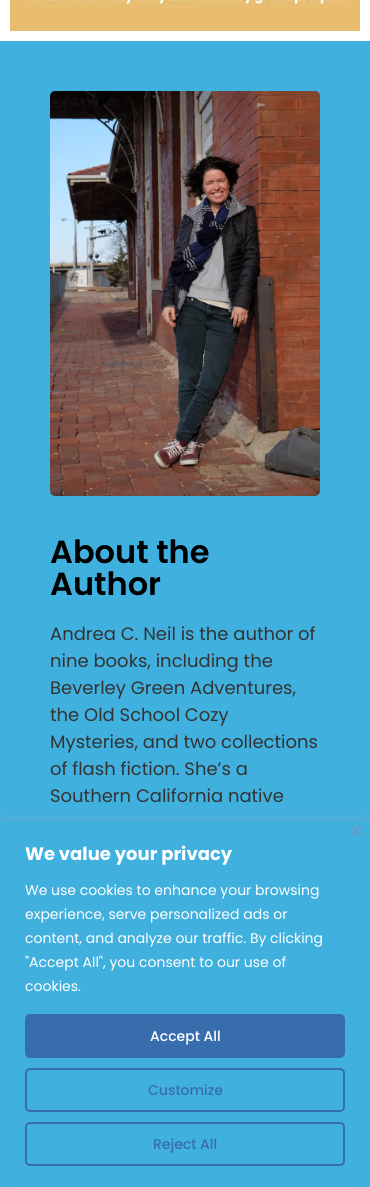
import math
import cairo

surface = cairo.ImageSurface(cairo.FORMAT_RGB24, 370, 1187)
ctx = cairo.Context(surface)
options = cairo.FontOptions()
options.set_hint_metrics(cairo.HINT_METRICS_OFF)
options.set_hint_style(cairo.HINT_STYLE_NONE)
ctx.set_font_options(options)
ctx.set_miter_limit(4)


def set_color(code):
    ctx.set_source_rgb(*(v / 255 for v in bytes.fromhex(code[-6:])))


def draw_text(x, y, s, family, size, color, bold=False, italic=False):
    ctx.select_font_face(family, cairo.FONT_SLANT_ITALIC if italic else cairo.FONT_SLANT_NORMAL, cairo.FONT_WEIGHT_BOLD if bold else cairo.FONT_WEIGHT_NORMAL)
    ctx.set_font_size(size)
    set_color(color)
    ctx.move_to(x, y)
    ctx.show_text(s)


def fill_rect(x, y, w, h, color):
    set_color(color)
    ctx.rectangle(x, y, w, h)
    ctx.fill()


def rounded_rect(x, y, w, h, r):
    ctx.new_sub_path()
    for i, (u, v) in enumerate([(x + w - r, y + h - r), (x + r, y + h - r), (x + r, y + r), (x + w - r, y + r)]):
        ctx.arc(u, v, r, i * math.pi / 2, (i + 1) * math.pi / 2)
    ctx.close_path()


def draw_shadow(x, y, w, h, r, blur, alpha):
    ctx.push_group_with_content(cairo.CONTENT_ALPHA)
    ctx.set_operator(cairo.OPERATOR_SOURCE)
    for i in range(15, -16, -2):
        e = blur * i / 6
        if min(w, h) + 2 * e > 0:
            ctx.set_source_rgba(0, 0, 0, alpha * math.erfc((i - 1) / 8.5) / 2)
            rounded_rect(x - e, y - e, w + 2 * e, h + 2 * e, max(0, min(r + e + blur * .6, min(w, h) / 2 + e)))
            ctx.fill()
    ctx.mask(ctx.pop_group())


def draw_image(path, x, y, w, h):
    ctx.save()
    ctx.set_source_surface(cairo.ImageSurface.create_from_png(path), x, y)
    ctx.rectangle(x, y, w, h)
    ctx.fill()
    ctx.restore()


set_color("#ffffff")
ctx.paint()
draw_image("assets/img1.png", 10, 0, 350, 31)
fill_rect(0, 41, 370, 1146, "#40b0df")
draw_image("assets/img2.png", 50, 91, 270, 405)
draw_text(50, 563, "About the", "Poppins SemiBold", 32, "#000000")
draw_text(50, 595, "Author", "Poppins SemiBold", 32, "#000000")
draw_text(50, 640, "Andrea C. Neil is the author of", "Poppins", 18, "#333333")
draw_text(50, 667, "nine books, including the", "Poppins", 18, "#333333")
draw_text(50, 694, "Beverley Green Adventures,", "Poppins", 18, "#333333")
draw_text(50, 721, "the Old School Cozy", "Poppins", 18, "#333333")
draw_text(50, 748, "Mysteries, and two collections", "Poppins", 18, "#333333")
draw_text(50, 775, "of flash fiction. She’s a", "Poppins", 18, "#333333")
draw_text(50, 802, "Southern California native", "Poppins", 18, "#333333")
set_color("#acabab")
draw_shadow(0, 820, 370, 366, 6, 5, 0.3)
set_color("#40b0df")
rounded_rect(0.5, 821.5, 369, 365, 5.5)
ctx.fill_preserve()
ctx.set_line_width(1)
ctx.stroke()
draw_image("assets/img3.png", 352, 826, 9, 9)
draw_text(25, 860, "We value your privacy", "Poppins", 18, "#ffffff", bold=True)
draw_text(25, 895, "We use cookies to enhance your browsing", "Poppins", 14, "#ffffff")
draw_text(25, 919, "experience, serve personalized ads or", "Poppins", 14, "#ffffff")
draw_text(25, 943, "content, and analyze our traffic. By clicking", "Poppins", 14, "#ffffff")
draw_text(25, 967, "\"Accept All\", you consent to our use of", "Poppins", 14, "#ffffff")
draw_text(25, 991, "cookies.", "Poppins", 14, "#ffffff")
set_color("#386dad")
rounded_rect(26, 1015, 318, 42, 4)
ctx.fill_preserve()
ctx.set_line_width(2)
ctx.stroke()
draw_text(150, 1041, "Accept All", "Poppins Medium", 14, "#ffffff")
rounded_rect(26, 1069, 318, 42, 4)
set_color("#386dad")
ctx.stroke()
draw_text(148, 1095, "Customize", "Poppins Medium", 14, "#386dad")
rounded_rect(26, 1123, 318, 42, 4)
ctx.stroke()
draw_text(153, 1149, "Reject All", "Poppins Medium", 14, "#386dad")
surface.write_to_png("output.png")
